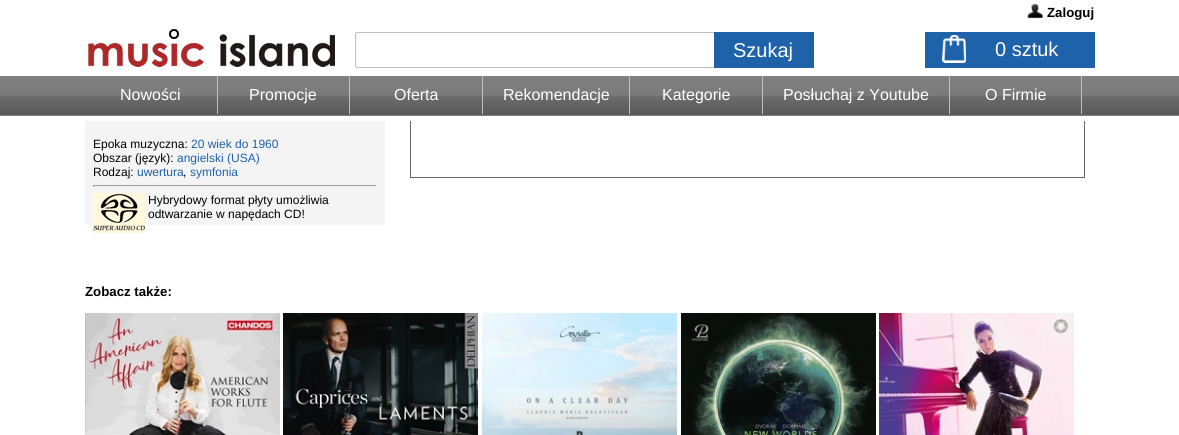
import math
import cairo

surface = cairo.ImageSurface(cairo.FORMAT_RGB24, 1179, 435)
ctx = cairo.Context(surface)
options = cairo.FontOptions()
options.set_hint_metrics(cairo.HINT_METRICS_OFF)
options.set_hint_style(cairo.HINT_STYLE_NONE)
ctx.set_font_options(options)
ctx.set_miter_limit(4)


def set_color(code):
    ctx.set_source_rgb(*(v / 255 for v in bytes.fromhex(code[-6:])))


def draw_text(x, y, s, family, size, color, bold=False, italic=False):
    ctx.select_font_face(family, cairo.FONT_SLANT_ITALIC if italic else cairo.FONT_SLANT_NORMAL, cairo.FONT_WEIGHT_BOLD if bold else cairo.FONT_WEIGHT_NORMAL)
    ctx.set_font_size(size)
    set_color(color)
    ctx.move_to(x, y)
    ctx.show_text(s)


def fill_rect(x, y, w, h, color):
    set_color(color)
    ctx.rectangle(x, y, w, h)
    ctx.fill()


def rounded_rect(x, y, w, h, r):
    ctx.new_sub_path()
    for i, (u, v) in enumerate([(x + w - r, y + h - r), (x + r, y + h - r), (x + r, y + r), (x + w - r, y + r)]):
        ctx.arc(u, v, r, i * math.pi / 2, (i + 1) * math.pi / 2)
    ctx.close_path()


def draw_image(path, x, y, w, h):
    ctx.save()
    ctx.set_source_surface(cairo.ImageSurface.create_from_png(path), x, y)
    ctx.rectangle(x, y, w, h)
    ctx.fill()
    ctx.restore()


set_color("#ffffff")
ctx.paint()
ctx.rectangle(410.5, -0.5, 674, 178)
set_color("#666666")
ctx.set_line_width(1)
ctx.stroke()
fill_rect(410, 0, 675, 121, "#ffffff")
draw_image("assets/img1.png", 1027, 4, 16, 15)
draw_text(1047, 17, "Zaloguj", "Liberation Sans", 13.25, "#000000", bold=True)
draw_image("assets/img2.png", 88, 29, 247, 38)
rounded_rect(355.5, 32.5, 359, 35, 1.5)
set_color("#c0c0c0")
ctx.stroke()
fill_rect(714, 32, 100, 36, "#1e62aa")
draw_text(733, 57, "Szukaj", "Liberation Sans", 20, "#ffffff")
fill_rect(925, 32, 170, 36, "#1e62aa")
draw_image("assets/img3.png", 942, 35, 24, 28)
draw_text(995, 56, "0 sztuk", "Liberation Sans", 20, "#ffffff")
draw_image("assets/img4.png", 0, 76, 1179, 40)
fill_rect(217, 76, 1, 38, "#c0c0c0")
draw_text(120, 100, "Nowości", "Liberation Sans", 16, "#ffffff")
fill_rect(349, 76, 1, 38, "#c0c0c0")
draw_text(249, 100, "Promocje", "Liberation Sans", 16, "#ffffff")
fill_rect(482, 76, 1, 38, "#c0c0c0")
draw_text(394, 100, "Oferta", "Liberation Sans", 16, "#ffffff")
fill_rect(629, 76, 1, 38, "#c0c0c0")
draw_text(503, 100, "Rekomendacje", "Liberation Sans", 16, "#ffffff")
fill_rect(762, 76, 1, 38, "#c0c0c0")
draw_text(662, 100, "Kategorie", "Liberation Sans", 16, "#ffffff")
fill_rect(949, 76, 1, 38, "#c0c0c0")
draw_text(783, 100, "Posłuchaj z Youtube", "Liberation Sans", 16, "#ffffff")
fill_rect(1081, 76, 1, 38, "#c0c0c0")
draw_text(985, 100, "O Firmie", "Liberation Sans", 16, "#ffffff")
fill_rect(85, 121, 300, 104, "#f4f4f4")
draw_text(93, 148, "Epoka muzyczna:", "Liberation Sans", 12, "#000000")
draw_text(191, 148, "20 wiek do 1960", "Liberation Sans", 12, "#1e62aa")
draw_text(93, 162, "Obszar (język):", "Liberation Sans", 12, "#000000")
draw_text(177, 162, "angielski (USA)", "Liberation Sans", 12, "#1e62aa")
draw_text(93, 176, "Rodzaj:", "Liberation Sans", 12, "#000000")
draw_text(137, 176, "uwertura", "Liberation Sans", 12, "#1e62aa")
draw_text(183, 176, ",", "Liberation Sans", 12, "#000000")
draw_text(190, 176, "symfonia", "Liberation Sans", 12, "#1e62aa")
fill_rect(93, 185, 284, 1, "#9f9f9f")
fill_rect(376, 185, 1, 2, "#eeeeee")
fill_rect(93, 186, 284, 1, "#eeeeee")
fill_rect(93, 185, 1, 2, "#9f9f9f")
draw_image("assets/img5.png", 93, 193, 52, 40)
draw_text(148, 204, "Hybrydowy format płyty umożliwia", "Liberation Sans", 12, "#000000")
draw_text(148, 218, "odtwarzanie w napędach CD!", "Liberation Sans", 12, "#000000")
draw_text(85, 296, "Zobacz także:", "Liberation Sans", 13.25, "#000000", bold=True)
draw_image("assets/img6.png", 85, 313, 195, 122)
draw_image("assets/img7.png", 283, 313, 195, 122)
draw_image("assets/img8.png", 482, 313, 195, 122)
draw_image("assets/img9.png", 681, 313, 195, 122)
draw_image("assets/img10.png", 879, 313, 195, 122)
surface.write_to_png("output.png")
